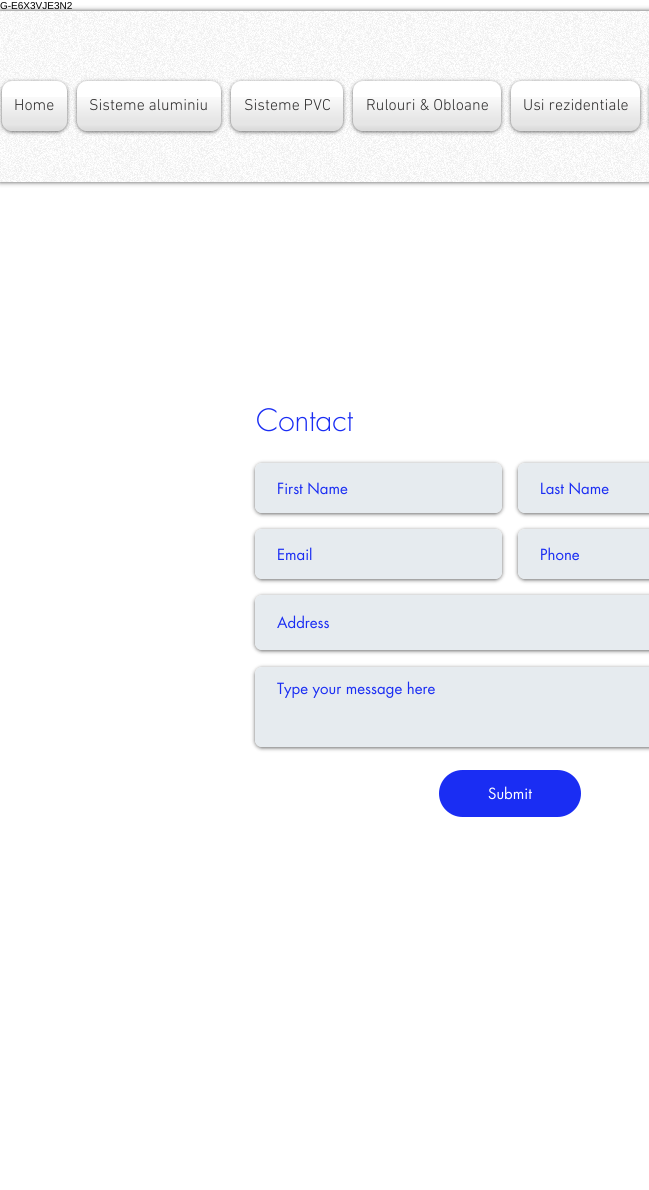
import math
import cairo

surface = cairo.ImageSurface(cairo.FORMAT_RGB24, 649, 1190)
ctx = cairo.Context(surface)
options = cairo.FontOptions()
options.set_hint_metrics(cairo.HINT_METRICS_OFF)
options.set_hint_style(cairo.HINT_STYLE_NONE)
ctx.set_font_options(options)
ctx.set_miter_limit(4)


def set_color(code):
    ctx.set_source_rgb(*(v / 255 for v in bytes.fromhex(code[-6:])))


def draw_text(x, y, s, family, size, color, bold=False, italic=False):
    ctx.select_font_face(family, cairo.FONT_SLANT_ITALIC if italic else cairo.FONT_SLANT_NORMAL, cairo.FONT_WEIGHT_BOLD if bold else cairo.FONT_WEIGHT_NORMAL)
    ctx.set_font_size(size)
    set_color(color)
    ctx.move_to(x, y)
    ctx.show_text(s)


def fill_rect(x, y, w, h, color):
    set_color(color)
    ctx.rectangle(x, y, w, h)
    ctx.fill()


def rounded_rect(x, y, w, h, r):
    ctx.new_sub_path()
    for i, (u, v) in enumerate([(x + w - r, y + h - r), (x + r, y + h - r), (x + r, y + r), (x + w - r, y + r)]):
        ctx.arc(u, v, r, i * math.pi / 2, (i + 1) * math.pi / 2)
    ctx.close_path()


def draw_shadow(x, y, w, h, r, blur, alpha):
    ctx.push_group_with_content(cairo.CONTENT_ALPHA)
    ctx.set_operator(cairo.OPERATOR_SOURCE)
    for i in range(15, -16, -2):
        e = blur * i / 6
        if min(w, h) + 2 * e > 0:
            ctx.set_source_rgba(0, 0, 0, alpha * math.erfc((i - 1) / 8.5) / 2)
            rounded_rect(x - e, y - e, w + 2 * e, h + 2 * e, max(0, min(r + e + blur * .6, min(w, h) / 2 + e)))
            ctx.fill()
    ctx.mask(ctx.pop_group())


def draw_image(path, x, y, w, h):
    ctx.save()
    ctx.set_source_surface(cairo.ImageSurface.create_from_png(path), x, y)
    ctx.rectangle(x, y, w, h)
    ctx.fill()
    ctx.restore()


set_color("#ffffff")
ctx.paint()
draw_text(0, 9, "G-E6X3VJE3N2", "Liberation Sans", 10, "#000000")
ctx.save()
ctx.set_fill_rule(cairo.FILL_RULE_EVEN_ODD)
ctx.new_path()
ctx.move_to(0, 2)
ctx.line_to(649, 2)
ctx.line_to(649, 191)
ctx.line_to(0, 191)
ctx.close_path()
ctx.move_to(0, 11)
ctx.line_to(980, 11)
ctx.line_to(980, 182)
ctx.line_to(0, 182)
ctx.close_path()
ctx.clip()
set_color("#000000")
draw_shadow(0, 11, 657, 171, 0, 2.5, 0.7)
ctx.restore()
draw_image("assets/img1.png", 0, 11, 649, 171)
set_color("#000000")
draw_shadow(2, 82, 65, 50, 10, 2, 0.6)
set_color("#ffffff")
rounded_rect(2, 81, 65, 50, 10)
ctx.fill()
draw_image("assets/img2.png", 2, 97, 65, 34)
draw_text(14, 110, "Home", "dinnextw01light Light", 16, "#2f2e2e")
set_color("#000000")
draw_shadow(77, 82, 144, 50, 10, 2, 0.6)
set_color("#ffffff")
rounded_rect(77, 81, 144, 50, 10)
ctx.fill()
fill_rect(83, 81, 1, 1, "#eaeaea")
draw_image("assets/img3.png", 77, 97, 144, 34)
draw_text(89, 110, "Sisteme aluminiu", "dinnextw01light Light", 16, "#2f2e2e")
set_color("#000000")
draw_shadow(231, 82, 112, 50, 10, 2, 0.6)
set_color("#ffffff")
rounded_rect(231, 81, 112, 50, 10)
ctx.fill()
draw_image("assets/img4.png", 237, 81, 100, 1)
draw_image("assets/img5.png", 231, 97, 112, 34)
draw_text(244, 110, "Sisteme PVC", "dinnextw01light Light", 16, "#2f2e2e")
set_color("#000000")
draw_shadow(353, 82, 148, 50, 10, 2, 0.6)
set_color("#ffffff")
rounded_rect(353, 81, 148, 50, 10)
ctx.fill()
draw_image("assets/img6.png", 353, 97, 148, 34)
draw_text(366, 110, "Rulouri & Obloane", "dinnextw01light Light", 16, "#2f2e2e")
set_color("#000000")
draw_shadow(511, 82, 129, 50, 10, 2, 0.6)
set_color("#ffffff")
rounded_rect(511, 81, 129, 50, 10)
ctx.fill()
fill_rect(633, 81, 1, 1, "#e9e9e9")
draw_image("assets/img7.png", 511, 97, 129, 34)
draw_text(523, 110, "Usi rezidentiale", "dinnextw01light Light", 16, "#2f2e2e")
set_color("#000000")
draw_shadow(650, 82, 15, 50, 10, 2, 0.6)
draw_text(256, 431, "Contact", "futura Light", 30, "#1a2df3")
ctx.save()
ctx.set_fill_rule(cairo.FILL_RULE_EVEN_ODD)
ctx.new_path()
ctx.move_to(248, 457)
ctx.line_to(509, 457)
ctx.line_to(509, 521)
ctx.line_to(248, 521)
ctx.close_path()
ctx.move_to(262, 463)
ctx.line_to(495, 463)
ctx.curve_to(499, 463, 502, 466, 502, 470)
ctx.line_to(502, 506)
ctx.curve_to(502, 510, 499, 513, 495, 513)
ctx.line_to(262, 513)
ctx.curve_to(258, 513, 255, 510, 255, 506)
ctx.line_to(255, 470)
ctx.curve_to(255, 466, 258, 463, 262, 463)
ctx.close_path()
ctx.clip()
set_color("#000000")
draw_shadow(255, 464, 247, 50, 7, 2, 0.6)
ctx.restore()
ctx.set_source_rgba(0.376, 0.49, 0.588, 0.16)
rounded_rect(255, 463, 247, 50, 7)
ctx.fill()
draw_text(277, 494, "First Name", "futura", 15, "#1a2df3")
ctx.save()
ctx.set_fill_rule(cairo.FILL_RULE_EVEN_ODD)
ctx.new_path()
ctx.move_to(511, 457)
ctx.line_to(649, 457)
ctx.line_to(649, 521)
ctx.line_to(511, 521)
ctx.close_path()
ctx.move_to(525, 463)
ctx.line_to(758, 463)
ctx.curve_to(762, 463, 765, 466, 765, 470)
ctx.line_to(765, 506)
ctx.curve_to(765, 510, 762, 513, 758, 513)
ctx.line_to(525, 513)
ctx.curve_to(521, 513, 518, 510, 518, 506)
ctx.line_to(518, 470)
ctx.curve_to(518, 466, 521, 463, 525, 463)
ctx.close_path()
ctx.clip()
set_color("#000000")
draw_shadow(518, 464, 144, 50, 7, 2, 0.6)
ctx.restore()
ctx.set_source_rgba(0.376, 0.49, 0.588, 0.16)
rounded_rect(518, 463, 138, 50, 7)
ctx.fill()
draw_text(540, 494, "Last Name", "futura", 15, "#1a2df3")
ctx.save()
ctx.set_fill_rule(cairo.FILL_RULE_EVEN_ODD)
ctx.new_path()
ctx.move_to(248, 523)
ctx.line_to(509, 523)
ctx.line_to(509, 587)
ctx.line_to(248, 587)
ctx.close_path()
ctx.move_to(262, 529)
ctx.line_to(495, 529)
ctx.curve_to(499, 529, 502, 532, 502, 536)
ctx.line_to(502, 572)
ctx.curve_to(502, 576, 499, 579, 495, 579)
ctx.line_to(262, 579)
ctx.curve_to(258, 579, 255, 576, 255, 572)
ctx.line_to(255, 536)
ctx.curve_to(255, 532, 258, 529, 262, 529)
ctx.close_path()
ctx.clip()
set_color("#000000")
draw_shadow(255, 530, 247, 50, 7, 2, 0.6)
ctx.restore()
ctx.set_source_rgba(0.376, 0.49, 0.588, 0.16)
rounded_rect(255, 529, 247, 50, 7)
ctx.fill()
draw_text(277, 560, "Email", "futura", 15, "#1a2df3")
ctx.save()
ctx.set_fill_rule(cairo.FILL_RULE_EVEN_ODD)
ctx.new_path()
ctx.move_to(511, 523)
ctx.line_to(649, 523)
ctx.line_to(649, 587)
ctx.line_to(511, 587)
ctx.close_path()
ctx.move_to(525, 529)
ctx.line_to(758, 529)
ctx.curve_to(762, 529, 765, 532, 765, 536)
ctx.line_to(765, 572)
ctx.curve_to(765, 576, 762, 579, 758, 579)
ctx.line_to(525, 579)
ctx.curve_to(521, 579, 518, 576, 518, 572)
ctx.line_to(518, 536)
ctx.curve_to(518, 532, 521, 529, 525, 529)
ctx.close_path()
ctx.clip()
set_color("#000000")
draw_shadow(518, 530, 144, 50, 7, 2, 0.6)
ctx.restore()
ctx.set_source_rgba(0.376, 0.49, 0.588, 0.16)
rounded_rect(518, 529, 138, 50, 7)
ctx.fill()
draw_text(540, 560, "Phone", "futura", 15, "#1a2df3")
ctx.save()
ctx.set_fill_rule(cairo.FILL_RULE_EVEN_ODD)
ctx.new_path()
ctx.move_to(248, 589)
ctx.line_to(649, 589)
ctx.line_to(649, 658)
ctx.line_to(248, 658)
ctx.close_path()
ctx.move_to(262, 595)
ctx.line_to(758, 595)
ctx.curve_to(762, 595, 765, 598, 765, 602)
ctx.line_to(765, 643)
ctx.curve_to(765, 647, 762, 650, 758, 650)
ctx.line_to(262, 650)
ctx.curve_to(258, 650, 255, 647, 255, 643)
ctx.line_to(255, 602)
ctx.curve_to(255, 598, 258, 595, 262, 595)
ctx.close_path()
ctx.clip()
set_color("#000000")
draw_shadow(255, 596, 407, 55, 7, 2, 0.6)
ctx.restore()
ctx.set_source_rgba(0.376, 0.49, 0.588, 0.16)
rounded_rect(255, 595, 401, 55, 7)
ctx.fill()
draw_text(277, 628, "Address", "futura", 15, "#1a2df3")
ctx.save()
ctx.set_fill_rule(cairo.FILL_RULE_EVEN_ODD)
ctx.new_path()
ctx.move_to(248, 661)
ctx.line_to(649, 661)
ctx.line_to(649, 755)
ctx.line_to(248, 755)
ctx.close_path()
ctx.move_to(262, 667)
ctx.line_to(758, 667)
ctx.curve_to(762, 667, 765, 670, 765, 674)
ctx.line_to(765, 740)
ctx.curve_to(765, 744, 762, 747, 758, 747)
ctx.line_to(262, 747)
ctx.curve_to(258, 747, 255, 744, 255, 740)
ctx.line_to(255, 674)
ctx.curve_to(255, 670, 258, 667, 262, 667)
ctx.close_path()
ctx.clip()
set_color("#000000")
draw_shadow(255, 668, 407, 80, 7, 2, 0.6)
ctx.restore()
ctx.set_source_rgba(0.376, 0.49, 0.588, 0.16)
rounded_rect(255, 667, 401, 80, 7)
ctx.fill()
draw_text(277, 694, "Type your message here", "futura", 15, "#1a2df3")
rounded_rect(439, 770, 142, 47, 23.5)
ctx.fill()
draw_text(488, 799, "Submit", "futura", 15, "#ffffff")
surface.write_to_png("output.png")
